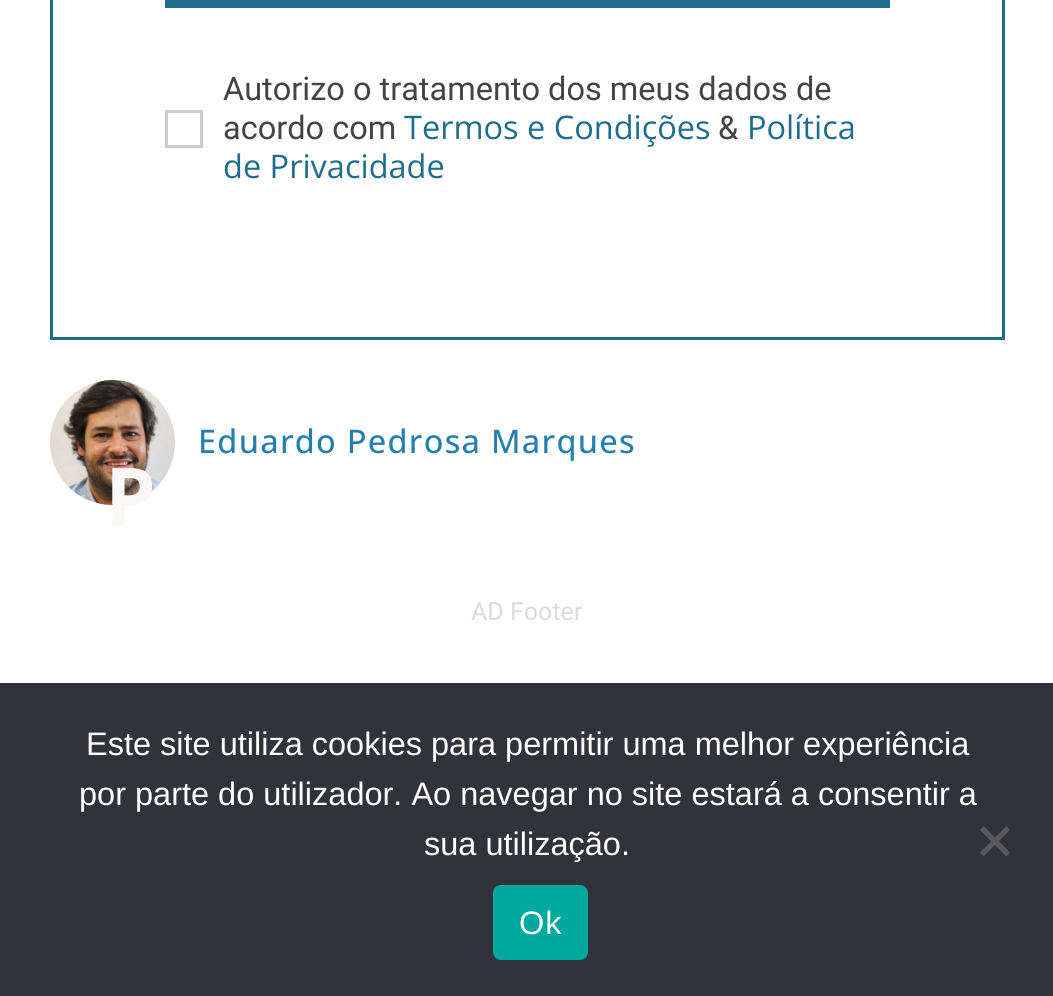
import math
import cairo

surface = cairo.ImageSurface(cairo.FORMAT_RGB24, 1053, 996)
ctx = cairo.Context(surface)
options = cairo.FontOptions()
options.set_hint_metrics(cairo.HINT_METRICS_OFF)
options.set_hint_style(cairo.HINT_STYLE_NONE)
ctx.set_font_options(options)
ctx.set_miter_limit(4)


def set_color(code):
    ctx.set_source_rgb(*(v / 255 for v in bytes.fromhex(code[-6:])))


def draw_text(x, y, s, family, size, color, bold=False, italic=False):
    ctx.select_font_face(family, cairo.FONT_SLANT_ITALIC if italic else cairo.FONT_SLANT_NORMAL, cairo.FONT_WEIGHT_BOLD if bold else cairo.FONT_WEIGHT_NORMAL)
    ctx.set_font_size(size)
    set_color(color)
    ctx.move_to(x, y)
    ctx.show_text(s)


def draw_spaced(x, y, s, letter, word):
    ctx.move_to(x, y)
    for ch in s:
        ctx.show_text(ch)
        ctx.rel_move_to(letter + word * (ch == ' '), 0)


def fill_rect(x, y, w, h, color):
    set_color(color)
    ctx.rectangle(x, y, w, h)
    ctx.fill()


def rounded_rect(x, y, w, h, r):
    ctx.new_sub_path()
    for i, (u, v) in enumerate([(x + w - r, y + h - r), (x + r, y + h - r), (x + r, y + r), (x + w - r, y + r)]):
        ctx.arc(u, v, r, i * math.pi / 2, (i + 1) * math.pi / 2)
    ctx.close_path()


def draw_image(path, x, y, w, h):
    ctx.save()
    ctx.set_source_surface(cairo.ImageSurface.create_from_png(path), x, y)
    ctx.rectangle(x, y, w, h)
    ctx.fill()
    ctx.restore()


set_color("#ffffff")
ctx.paint()
draw_image("assets/img1.png", 50, 380, 125, 125)
draw_text(105, 526, "P", "Open Sans", 81, "#f9f8f7", bold=True)
ctx.rectangle(51.5, -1.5, 952, 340)
set_color("#1e6d8d")
ctx.set_line_width(3)
ctx.stroke()
fill_rect(165, 0, 725, 8, "#1e6d8d")
ctx.rectangle(166.5, 111.5, 35, 35)
set_color("#cccccc")
ctx.stroke()
draw_text(223, 100, "Autorizo o tratamento dos meus dados de", "Roboto", 32.5, "#444444")
draw_text(223, 139, "acordo com", "Roboto", 32.5, "#444444")
draw_text(404, 139, "Termos e Condições", "Open Sans", 32.5, "#1e6d8d")
draw_text(718, 139, "&", "Roboto", 32.5, "#444444")
draw_text(747, 139, "Política", "Open Sans", 32.5, "#1e6d8d")
draw_text(223, 178, "de Privacidade", "Open Sans", 32.5, "#1e6d8d")
ctx.select_font_face("Open Sans Medium")
set_color("#247faf")
draw_spaced(198, 453, "Eduardo Pedrosa Marques", 1.25, 0)
draw_text(471, 620, "AD Footer", "Roboto", 25, "#dbdbdb")
fill_rect(0, 683, 1053, 313, "#32323a")
draw_text(86, 755, "Este site utiliza cookies para permitir uma melhor experiência", "Liberation Sans", 32.5, "#ffffff")
draw_text(79, 805, "por parte do utilizador. Ao navegar no site estará a consentir a", "Liberation Sans", 32.5, "#ffffff")
draw_text(424, 855, "sua utilização.", "Liberation Sans", 32.5, "#ffffff")
set_color("#59595d")
ctx.new_path()
ctx.move_to(1006.5, 826)
ctx.line_to(1010, 830)
ctx.line_to(983.5, 856.5)
ctx.line_to(980, 852.5)
ctx.close_path()
ctx.fill()
ctx.new_path()
ctx.move_to(980, 830)
ctx.line_to(983.5, 826)
ctx.line_to(1010, 852.5)
ctx.line_to(1006.5, 856.5)
ctx.close_path()
ctx.fill()
set_color("#00a99d")
rounded_rect(493, 885, 95, 75, 8)
ctx.fill()
set_color("#ffffff")
draw_spaced(519, 934, "Ok", 1, 0)
surface.write_to_png("output.png")
